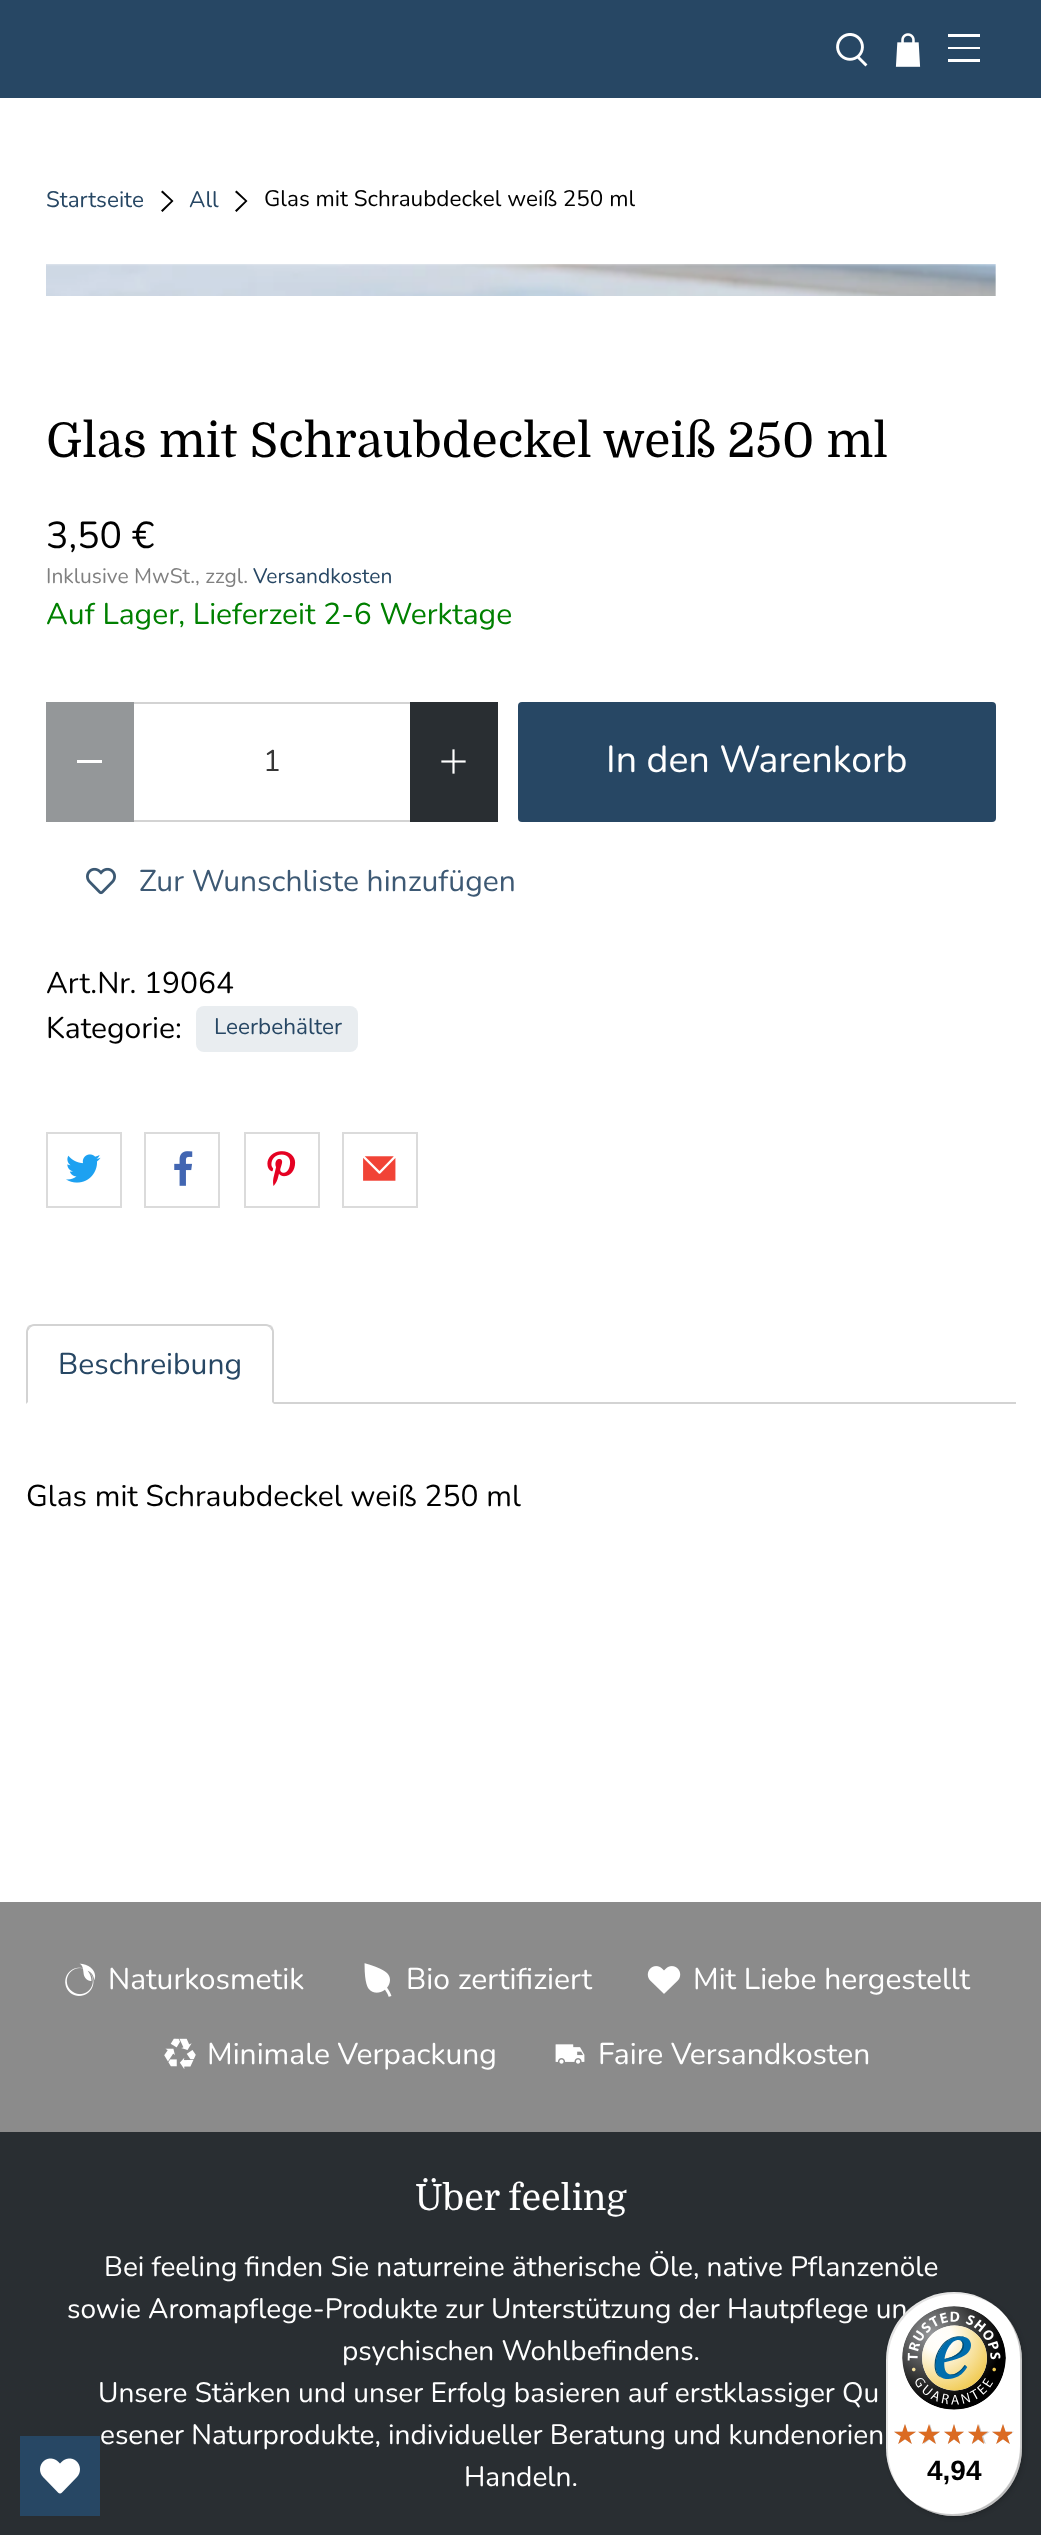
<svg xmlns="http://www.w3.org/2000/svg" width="1041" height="2535">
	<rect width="100%" height="100%" fill="#FFFFFF" />
	<rect x="0" y="0" width="1041" height="98" fill="#274764" />
	<image x="836" y="33" width="32" height="34" href="assets/img1.png" />
	<image x="895" y="33" width="26" height="34" href="assets/img2.png" />
	<rect x="948" y="34" width="32" height="3" fill="#FFFFFF" />
	<rect x="948" y="47" width="32" height="2" fill="#FFFFFF" />
	<rect x="948" y="59" width="32" height="3" fill="#FFFFFF" />
	<text x="46" y="207" font-family="Nunito" font-size="22.5" fill="#274764">Startseite</text>
	<path d="M162.5 212L161 210.5L171 201L161 192L162.5 190.5L173.5 201Z" fill="#000000" />
	<text x="189" y="207" font-family="Nunito" font-size="22.5" fill="#274764">All</text>
	<path d="M236.5 212L235 210.5L245 201L235 192L236.5 190.5L247.5 201Z" fill="#000000" />
	<text x="264" y="206" font-family="Nunito" font-size="22.5" fill="#000000">Glas mit Schraubdeckel weiß 250 ml</text>
	<image x="46" y="264" width="950" height="32" href="assets/img3.png" />
	<text x="46" y="457" font-family="Domine" font-size="48" fill="#000000">Glas mit Schraubdeckel weiß 250 ml</text>
	<text x="46" y="548" font-family="Nunito" font-size="37.5" fill="#000000">3,50 €</text>
	<text x="46" y="583" font-family="Nunito" font-size="21" fill="#808080">Inklusive MwSt., zzgl.</text>
	<text x="253" y="583" font-family="Nunito" font-size="21" fill="#274764">Versandkosten</text>
	<text x="46" y="624" font-family="Nunito" font-size="30" fill="#008000">Auf Lager, Lieferzeit 2-6 Werktage</text>
	<rect x="46" y="702" width="88" height="120" fill="#949799" />
	<rect x="77" y="760" width="25" height="3" fill="#FFFFFF" />
	<rect x="134" y="702" width="276" height="2" fill="#D3D3D3" />
	<rect x="134" y="820" width="276" height="2" fill="#D3D3D3" />
	<text x="263" y="771" font-family="Nunito" font-size="30" fill="#363636">1</text>
	<rect x="410" y="702" width="88" height="120" fill="#292E32" />
	<image x="441" y="749" width="25" height="25" href="assets/img4.png" />
	<rect x="518" y="702" width="478" height="120" rx="4" fill="#274764" />
	<text x="606" y="772" font-family="Nunito" font-size="37.5" fill="#FFFFFF">In den Warenkorb</text>
	<image x="86" y="867" width="30" height="28" href="assets/img5.png" />
	<text x="139" y="891" font-family="Nunito" font-size="30" fill="#3D5974">Zur Wunschliste hinzufügen</text>
	<g font-family="Nunito" font-size="30" fill="#000000">
		<text x="46" y="993">Art.Nr. 19064</text>
		<text x="46" y="1038">Kategorie:</text>
	</g>
	<rect x="196" y="1006" width="162" height="46" rx="8" fill="#E9EDF0" />
	<text x="214" y="1034" font-family="Nunito" font-size="22.5" fill="#274764">Leerbehälter</text>
	<rect x="47" y="1133" width="74" height="74" fill="none" stroke="#DBDBDB" stroke-width="2" />
	<image x="66" y="1154" width="35" height="29" href="assets/img6.png" />
	<rect x="145" y="1133" width="74" height="74" fill="none" stroke="#DBDBDB" stroke-width="2" />
	<image x="174" y="1151" width="19" height="35" href="assets/img7.png" />
	<rect x="245" y="1133" width="74" height="74" fill="none" stroke="#DBDBDB" stroke-width="2" />
	<image x="267" y="1151" width="29" height="35" href="assets/img8.png" />
	<rect x="343" y="1133" width="74" height="74" fill="none" stroke="#DBDBDB" stroke-width="2" />
	<image x="363" y="1156" width="33" height="25" href="assets/img9.png" />
	<rect x="274" y="1402" width="742" height="2" fill="#D3D3D3" />
	<path d="M34 1324C32 1324 30 1325 28 1326L30 1328C31 1327 32 1326 34 1326H266C268 1326 269 1327 270 1328L272 1326C270 1325 268 1324 266 1324Z" fill="#D3D3D3" />
	<path d="M274 1404V1332C274 1330 273 1328 272 1326L270 1328L272 1331V1402Z" fill="#D3D3D3" />
	<path d="M26 1404L28 1402V1331L30 1328L28 1326C27 1328 26 1330 26 1332Z" fill="#D3D3D3" />
	<text x="58" y="1374" font-family="Nunito" font-size="30" fill="#274764">Beschreibung</text>
	<text x="26" y="1506" font-family="Nunito" font-size="30" fill="#000000">Glas mit Schraubdeckel weiß 250 ml</text>
	<rect x="0" y="1902" width="1041" height="230" fill="#8B8B8B" />
	<image x="65" y="1963" width="31" height="33" href="assets/img10.png" />
	<text x="108" y="1989" font-family="Nunito" font-size="30" fill="#FFFFFF">Naturkosmetik</text>
	<image x="364" y="1963" width="28" height="34" href="assets/img11.png" />
	<text x="406" y="1989" font-family="Nunito" font-size="30" fill="#FFFFFF">Bio zertifiziert</text>
	<image x="647" y="1966" width="34" height="28" href="assets/img12.png" />
	<text x="693" y="1989" font-family="Nunito" font-size="30" fill="#FFFFFF">Mit Liebe hergestellt</text>
	<image x="164" y="2038" width="32" height="31" href="assets/img13.png" />
	<text x="207" y="2064" font-family="Nunito" font-size="30" fill="#FFFFFF">Minimale Verpackung</text>
	<image x="555" y="2044" width="30" height="20" href="assets/img14.png" />
	<text x="598" y="2064" font-family="Nunito" font-size="30" fill="#FFFFFF">Faire Versandkosten</text>
	<rect x="0" y="2132" width="1041" height="403" fill="#292E32" />
	<text x="415" y="2210" font-family="Domine" font-size="36" fill="#FFFFFF">Über feeling</text>
	<g font-family="Nunito" font-size="28" fill="#FFFFFF">
		<text x="104" y="2276">Bei feeling finden Sie naturreine ätherische Öle, native Pflanzenöle</text>
		<text x="67" y="2318">sowie Aromapflege-Produkte zur Unterstützung der Hautpflege un</text>
		<text x="342" y="2360">psychischen Wohlbefindens.</text>
		<text x="98" y="2402">Unsere Stärken und unser Erfolg basieren auf erstklassiger Qu</text>
		<text x="100" y="2444">esener Naturprodukte, individueller Beratung und kundenorien</text>
		<text x="464" y="2486">Handeln.</text>
	</g>
	<rect x="20" y="2436" width="80" height="80" fill="#274764" />
	<image x="40" y="2458" width="40" height="36" href="assets/img15.png" />
	<rect x="888" y="2294" width="136" height="224" rx="68" fill="#000000" fill-opacity="0.15" filter="blur(2px)" />
	<rect x="886" y="2292" width="136" height="224" rx="68" fill="#FFFFFF" />
	<path d="M956 2294C972 2294 987 2300 999 2309C987 2298 971 2292 954 2292C916 2292 886 2322 886 2360V2448C886 2465 892 2481 903 2493C894 2481 888 2466 888 2450V2362C888 2324 918 2294 956 2294Z" fill="#000000" fill-opacity="0.1" />
	<path d="M909 2499C921 2510 937 2516 954 2516C992 2516 1022 2486 1022 2448V2360C1022 2343 1016 2327 1005 2315C1014 2327 1020 2342 1020 2358V2446C1020 2484 990 2514 952 2514C936 2514 921 2508 909 2499Z" fill="#000000" fill-opacity="0.2" />
	<path d="M904 2495C917 2508 934 2516 954 2516C992 2516 1022 2486 1022 2448V2360C1022 2340 1014 2323 1001 2310C1013 2323 1021 2340 1021 2359V2447C1021 2484 990 2515 953 2515C934 2515 917 2507 904 2495Z" fill="#323232" fill-opacity="0.2" />
	<path d="M913 2502C925 2511 939 2516 954 2516C992 2516 1022 2486 1022 2448V2360C1022 2345 1017 2331 1008 2319C1016 2330 1021 2344 1021 2359V2447C1021 2485 991 2515 953 2515C938 2515 924 2510 913 2502Z" fill="#FFFFFF" fill-opacity="0.3" />
	<image x="902" y="2306" width="104" height="104" href="assets/img16.png" />
	<image x="894" y="2424" width="22" height="20" href="assets/img17.png" />
	<image x="920" y="2424" width="20" height="20" href="assets/img18.png" />
	<image x="944" y="2424" width="20" height="20" href="assets/img19.png" />
	<image x="968" y="2424" width="22" height="20" href="assets/img20.png" />
	<image x="992" y="2424" width="22" height="20" href="assets/img20.png" />
	<image x="894" y="2424" width="22" height="20" href="assets/img21.png" />
	<image x="918" y="2424" width="22" height="20" href="assets/img22.png" />
	<image x="944" y="2424" width="20" height="20" href="assets/img23.png" />
	<image x="968" y="2424" width="20" height="20" href="assets/img24.png" />
	<image x="992" y="2424" width="20" height="20" href="assets/img25.png" />
	<text x="927" y="2480" font-family="Liberation Sans" font-size="28" font-weight="700" fill="#000000">4,94</text>
</svg>
